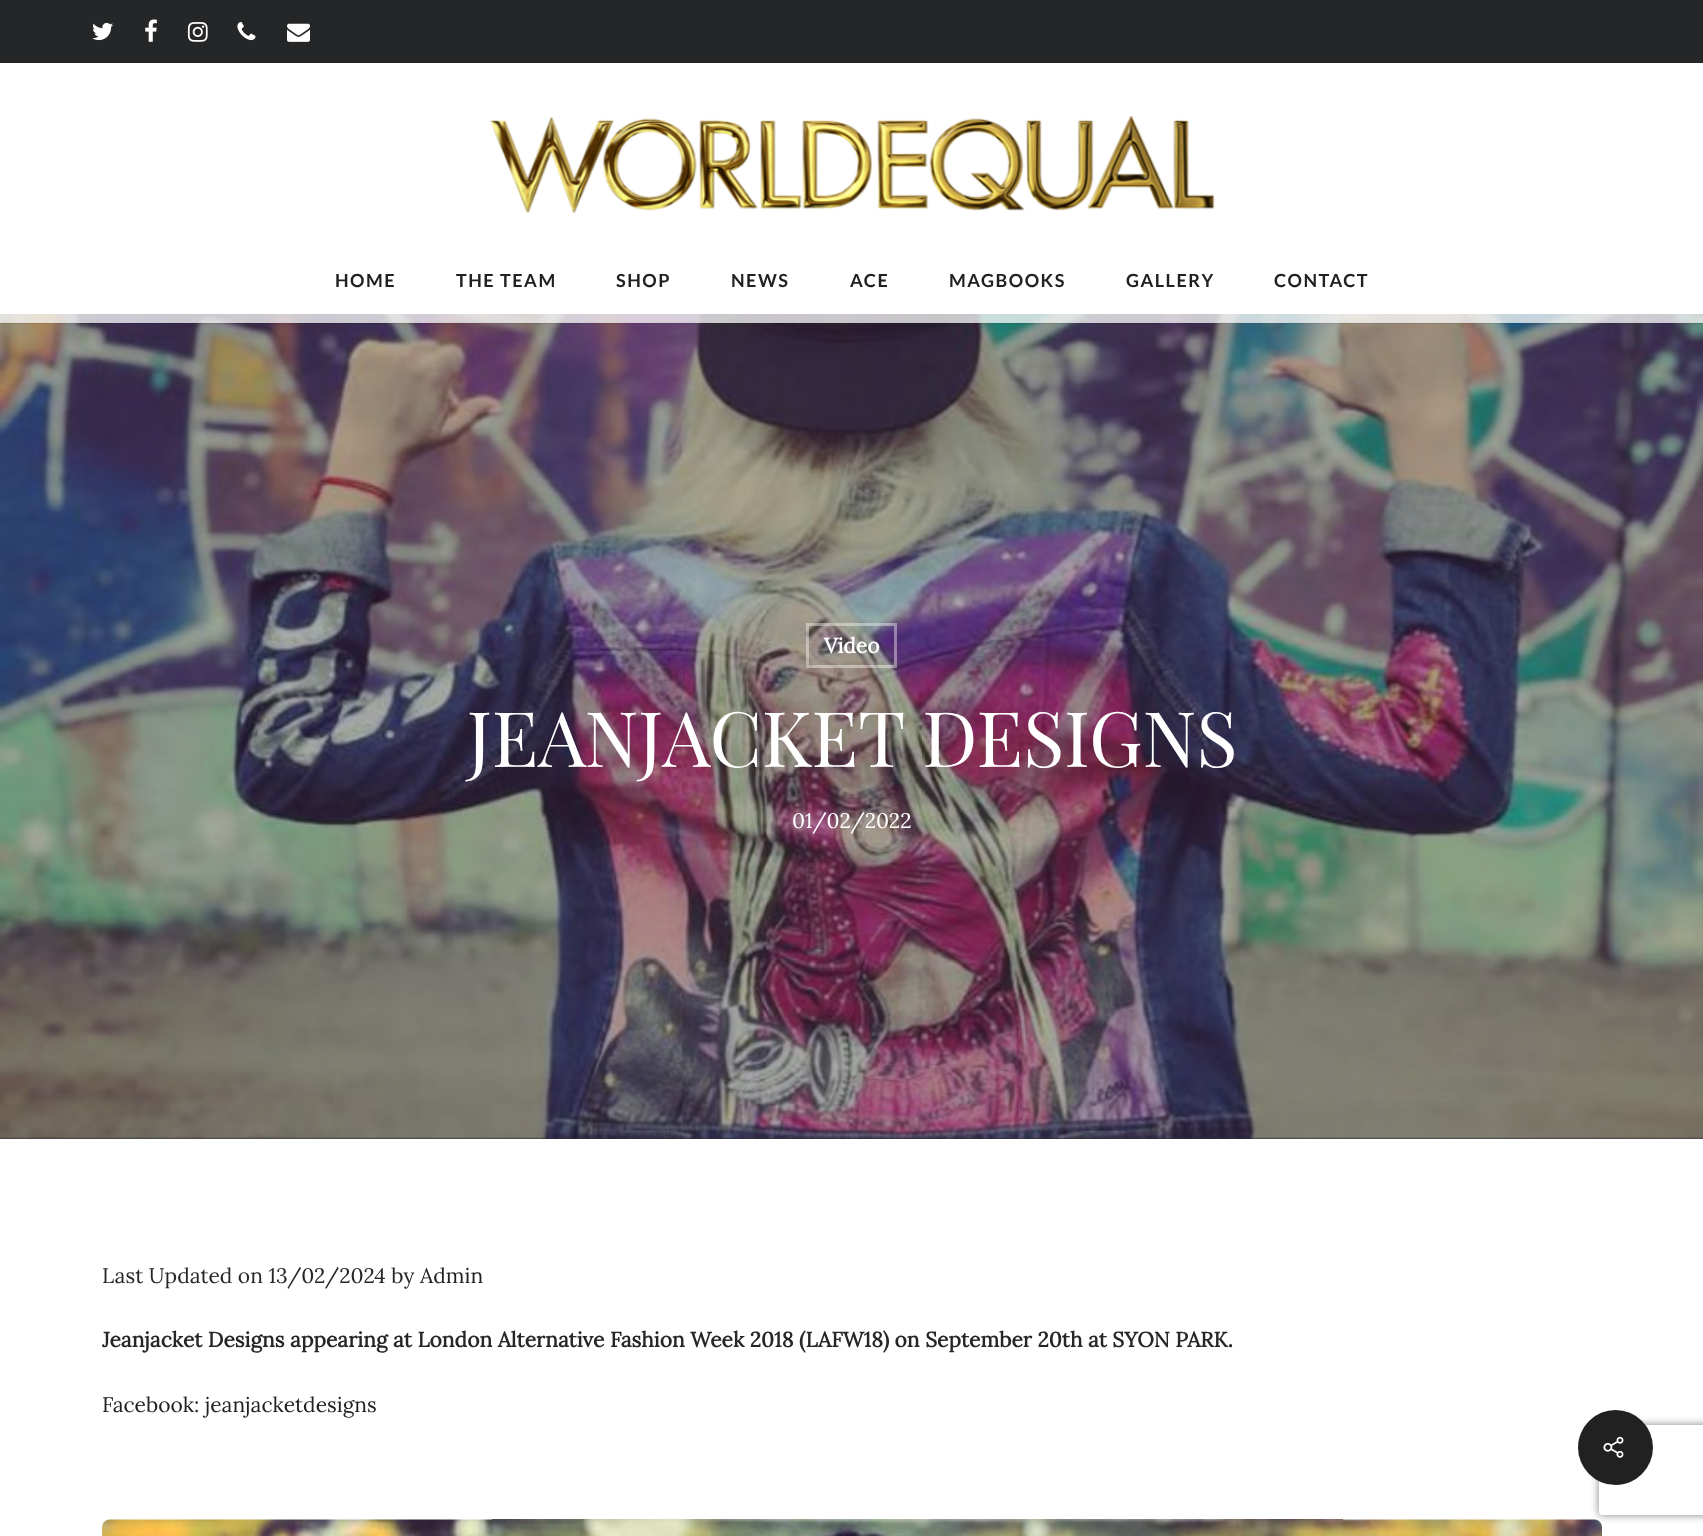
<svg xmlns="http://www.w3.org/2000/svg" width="1703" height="1536">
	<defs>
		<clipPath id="clip1"><path d="M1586 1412H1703V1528H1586ZM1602 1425H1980C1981.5 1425 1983 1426.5 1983 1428V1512C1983 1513.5 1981.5 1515 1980 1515H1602C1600.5 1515 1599 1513.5 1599 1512V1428C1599 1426.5 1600.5 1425 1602 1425Z" clip-rule="evenodd" /></clipPath>
	</defs>
	<rect width="100%" height="100%" fill="#FFFFFF" />
	<rect x="0" y="314" width="1703" height="825" fill="#2D2D2D" />
	<image x="0" y="314" width="1703" height="825" href="assets/img7.png" />
	<rect x="0" y="322" width="1703" height="2" fill="#000000" fill-opacity="0.08" />
	<rect x="0" y="314" width="1703" height="9" fill="#FFFFFF" fill-opacity="0.75" />
	<rect x="0" y="0" width="1703" height="63" fill="#252627" />
	<image x="92" y="22" width="21" height="19" href="assets/img1.png" />
	<image x="145" y="19" width="12" height="23" href="assets/img2.png" />
	<image x="187" y="22" width="21" height="20" href="assets/img3.png" />
	<image x="237" y="22" width="19" height="19" href="assets/img4.png" />
	<image x="287" y="23" width="23" height="19" href="assets/img5.png" />
	<image x="490" y="116" width="725" height="97" href="assets/img6.png" />
	<g font-family="Lato" font-size="18" font-weight="700" letter-spacing="1.5" fill="#212121">
		<text x="335" y="287">HOME</text>
		<text x="456" y="287">THE TEAM</text>
		<text x="616" y="287">SHOP</text>
		<text x="731" y="287">NEWS</text>
		<text x="850" y="287">ACE</text>
		<text x="949" y="287">MAGBOOKS</text>
		<text x="1126" y="287">GALLERY</text>
		<text x="1274" y="287">CONTACT</text>
	</g>
	<rect x="807.5" y="624.5" width="88" height="42" fill="none" stroke="#FFFFFF" stroke-opacity="0.4" stroke-width="3" />
	<text x="824" y="653" font-family="Lora" font-size="21" font-weight="700" fill="#FFFFFF">Video</text>
	<text x="467" y="767" font-family="Playfair Display" font-size="76.5" letter-spacing="-0.25" fill="#FFFFFF">JEANJACKET DESIGNS</text>
	<text x="792" y="828" font-family="Lora" font-size="21" fill="#FFFFFF">01/02/2022</text>
	<text x="102" y="1283" font-family="Lora" font-size="21" fill="#252627">Last Updated on 13/02/2024 by</text>
	<text x="420" y="1283" font-family="Lora" font-size="21" fill="#212121">Admin</text>
	<text x="102" y="1347" font-family="Lora" font-size="21" font-weight="700" fill="#252627">Jeanjacket Designs appearing at London Alternative Fashion Week 2018 (LAFW18) on September 20th at SYON PARK.</text>
	<text x="102" y="1412" font-family="Lora" font-size="21" fill="#212121">Facebook: jeanjacketdesigns</text>
	<image x="102" y="1519" width="1500" height="17" href="assets/img8.png" />
	<g clip-path="url(#clip1)">
		<rect x="1599" y="1425" width="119" height="90" rx="3" fill="#808080" filter="blur(4px)" />
	</g>
	<circle cx="1615.5" cy="1447.5" r="37.5" fill="#212121" />
	<image x="1603" y="1436" width="21" height="22" href="assets/img9.png" />
</svg>
